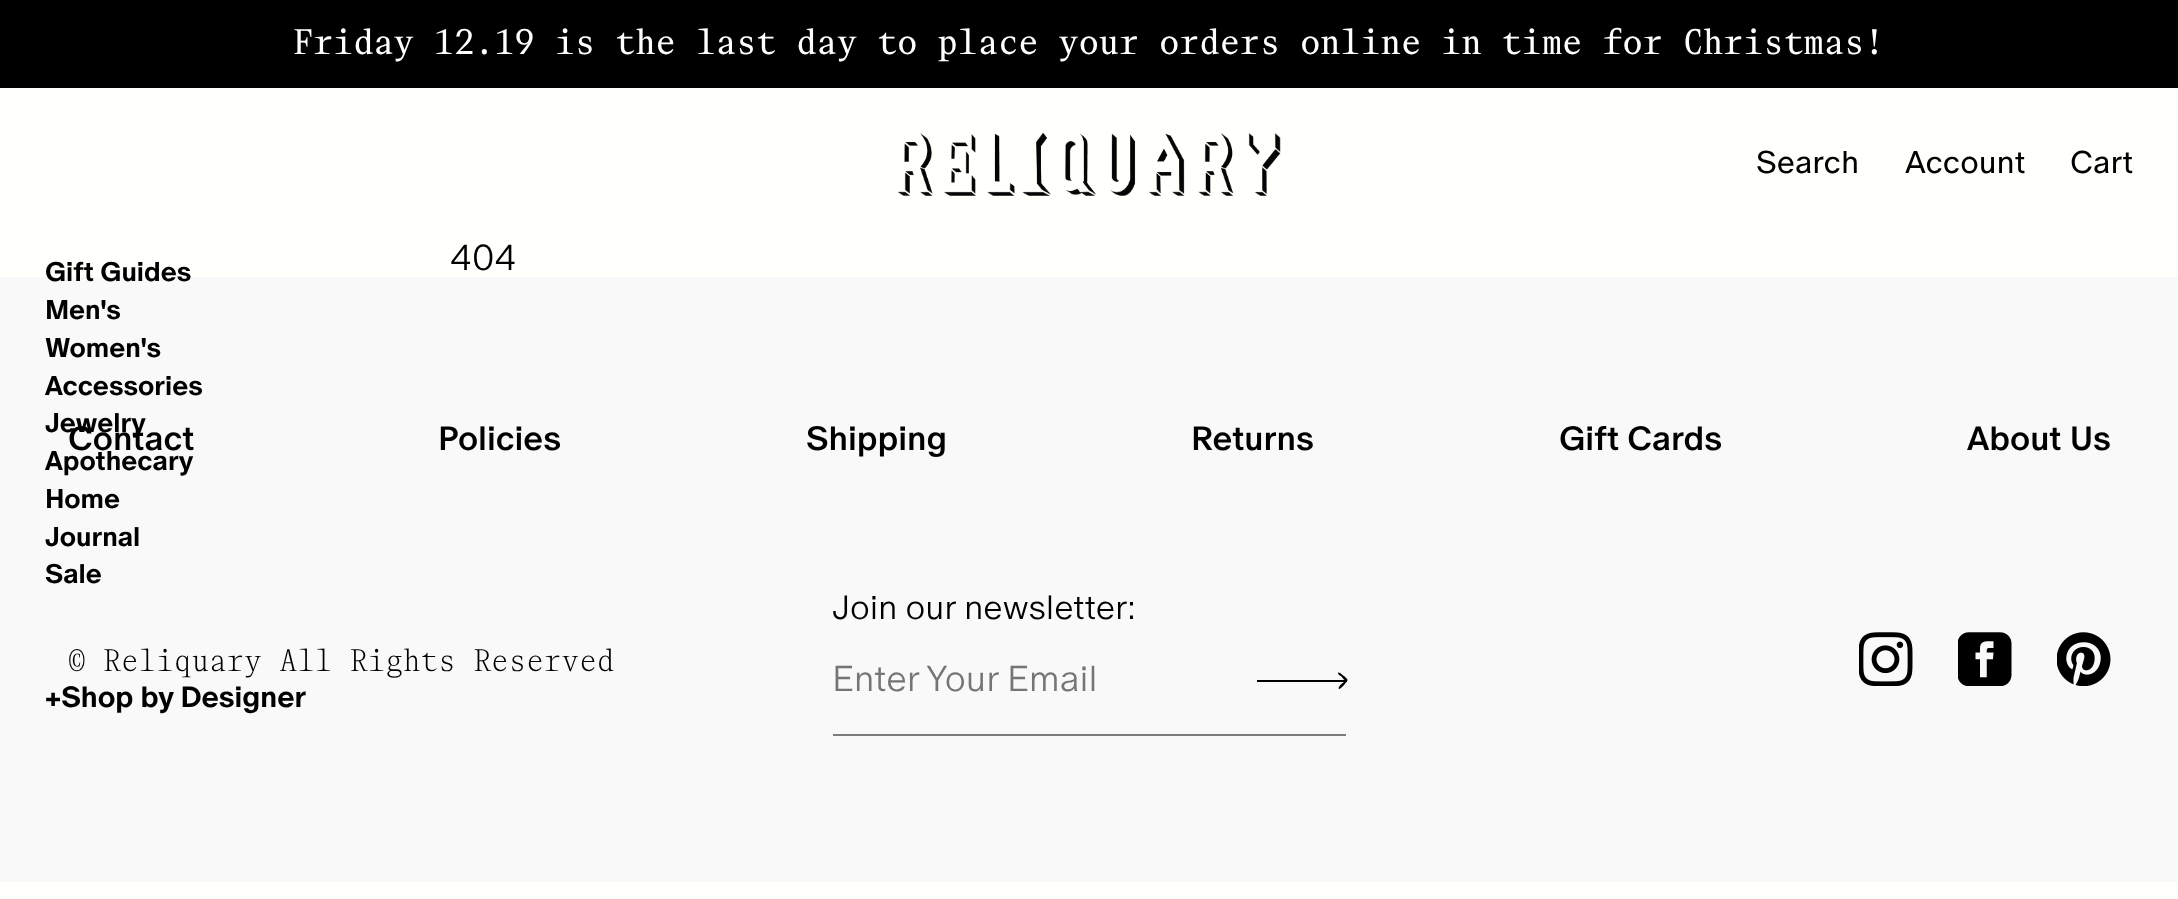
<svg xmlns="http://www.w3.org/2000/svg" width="2178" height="899">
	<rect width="100%" height="100%" fill="#FFFFFC" />
	<rect x="0" y="0" width="2178" height="88" fill="#000000" />
	<text x="293" y="54" font-family="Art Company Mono" font-size="36" fill="#FFFFFF">Friday 12.19 is the last day to place your orders online in time for Christmas!</text>
	<image x="897" y="132" width="384" height="64" href="assets/img1.png" />
	<g font-family="'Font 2'" font-size="31.5" font-weight="300" fill="#000000">
		<text x="1756" y="173">Search</text>
		<text x="1905" y="173">Account</text>
		<text x="2070" y="173">Cart</text>
	</g>
	<rect x="0" y="277" width="2178" height="605" fill="#F8F9F8" />
	<g font-family="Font" font-size="27" font-weight="700" fill="#000000">
		<text x="45" y="281">Gift Guides</text>
		<text x="45" y="319">Men's</text>
		<text x="45" y="357">Women's</text>
		<text x="45" y="395">Accessories</text>
	</g>
	<text x="68" y="450" font-family="Font" font-size="33.75" font-weight="500" fill="#000000">Contact</text>
	<g font-family="Font" font-size="27" font-weight="700" fill="#000000">
		<text x="45" y="432">Jewelry</text>
		<text x="45" y="470">Apothecary</text>
		<text x="45" y="508">Home</text>
		<text x="45" y="546">Journal</text>
		<text x="45" y="583">Sale</text>
	</g>
	<text x="45" y="707" font-family="Font" font-size="29.25" font-weight="700" fill="#000000">+Shop by Designer</text>
	<text x="450" y="270" font-family="Font" font-size="36" font-weight="300" fill="#000000">404</text>
	<g font-family="Font" font-size="33.75" font-weight="500" fill="#000000">
		<text x="438" y="450">Policies</text>
		<text x="806" y="450">Shipping</text>
		<text x="1191" y="450">Returns</text>
		<text x="1559" y="450">Gift Cards</text>
		<text x="1967" y="450">About Us</text>
	</g>
	<text x="68" y="671" font-family="Art Company Mono" font-size="31.5" font-weight="300" fill="#000000">© Reliquary All Rights Reserved</text>
	<text x="832" y="619" font-family="Font" font-size="33.75" font-weight="300" fill="#000000">Join our newsletter:</text>
	<rect x="833" y="734" width="513" height="2" fill="#7C7D7C" />
	<text x="832" y="691" font-family="Font" font-size="36" font-weight="300" fill="#757575">Enter Your Email</text>
	<path d="M1347 681C1349 680 1345 677 1344 676C1343 676 1339 671 1338 673C1338 674 1340 676 1341 676L1345 681C1344 682 1337 687 1339 689C1340 690 1346 683 1347 681ZM1257 682H1347V680H1257Z" fill="#000000" />
	<image x="1859" y="632" width="54" height="54" href="assets/img2.png" />
	<image x="1958" y="632" width="54" height="54" href="assets/img3.png" />
	<image x="2057" y="632" width="54" height="54" href="assets/img4.png" />
</svg>
